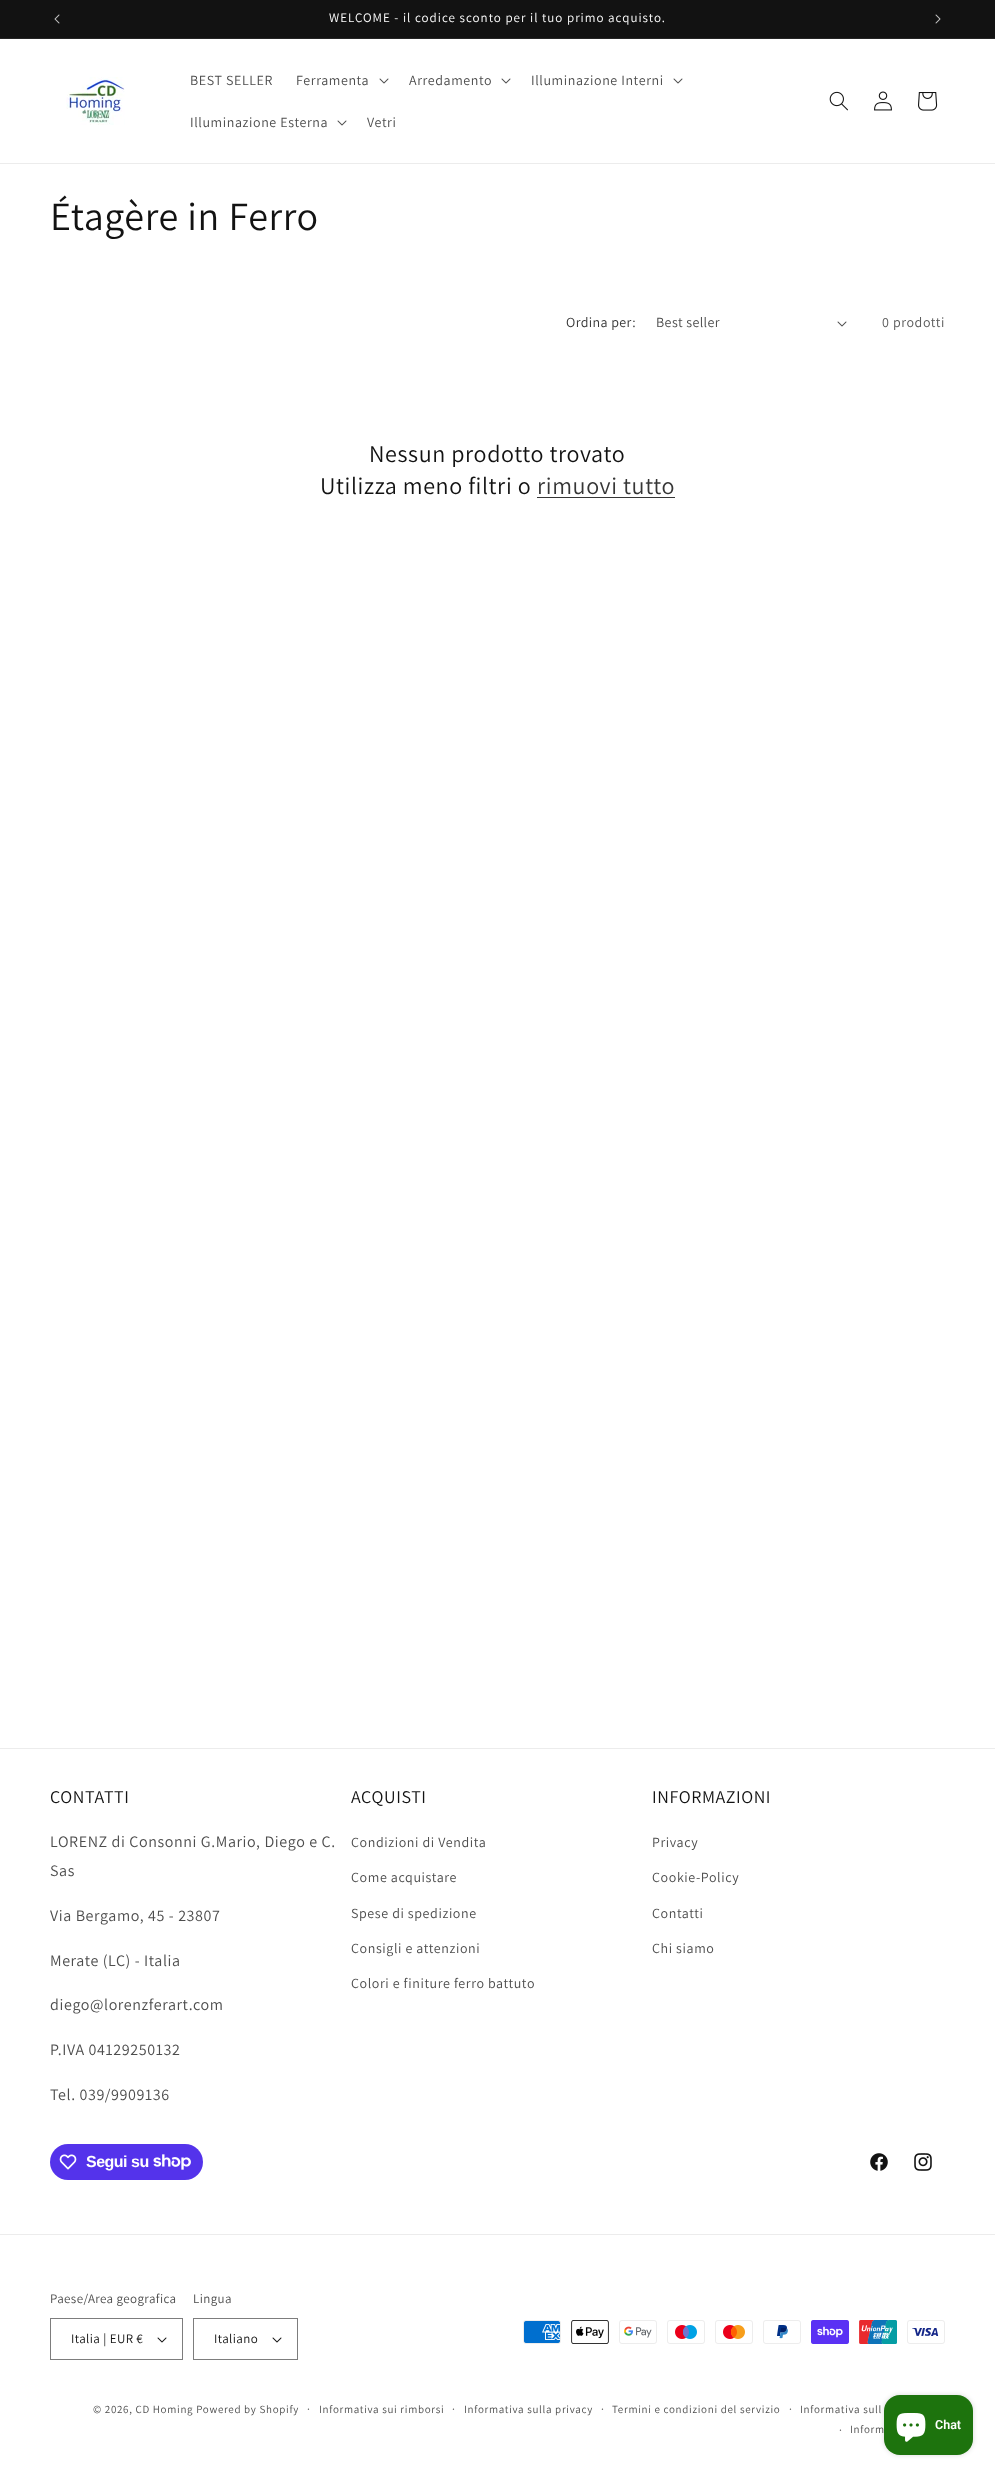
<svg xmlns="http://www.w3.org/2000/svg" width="995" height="2476">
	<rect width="100%" height="100%" fill="#FFFFFF" />
	<rect x="0" y="0" width="995" height="38" fill="#121212" />
	<rect x="0" y="38" width="995" height="1" fill="#252525" />
	<image x="54" y="14" width="6" height="10" href="assets/img1.png" />
	<text x="329" y="22" font-family="Assistant" font-size="13" letter-spacing="1" fill="#FFFFFF">WELCOME - il codice sconto per il tuo primo acquisto.</text>
	<image x="935" y="14" width="6" height="10" href="assets/img2.png" />
	<rect x="0" y="163" width="995" height="1" fill="#ECECEC" />
	<image x="66" y="77" width="59" height="48" href="assets/img3.png" />
	<g font-family="Assistant" font-size="14" letter-spacing="0.6" fill="#4D4D4D">
		<text x="190" y="85">BEST SELLER</text>
		<text x="296" y="85">Ferramenta</text>
	</g>
	<image x="379" y="78" width="10" height="6" href="assets/img4.png" />
	<text x="409" y="85" font-family="Assistant" font-size="14" letter-spacing="0.6" fill="#4D4D4D">Arredamento</text>
	<image x="501" y="78" width="10" height="6" href="assets/img4.png" />
	<text x="531" y="85" font-family="Assistant" font-size="14" letter-spacing="0.6" fill="#4D4D4D">Illuminazione Interni</text>
	<image x="673" y="78" width="10" height="6" href="assets/img4.png" />
	<text x="190" y="127" font-family="Assistant" font-size="14" letter-spacing="0.6" fill="#4D4D4D">Illuminazione Esterna</text>
	<image x="337" y="120" width="10" height="6" href="assets/img4.png" />
	<text x="367" y="127" font-family="Assistant" font-size="14" letter-spacing="0.6" fill="#4D4D4D">Vetri</text>
	<image x="829" y="91" width="19" height="20" href="assets/img5.png" />
	<image x="874" y="91" width="18" height="20" href="assets/img6.png" />
	<image x="918" y="92" width="20" height="19" href="assets/img7.png" />
	<text x="50" y="230" font-family="Assistant" font-size="40" letter-spacing="0.6" fill="#121212">Étagère in Ferro</text>
	<text x="566" y="327" font-family="Assistant" font-size="14" letter-spacing="0.4" fill="#363636">Ordina per:</text>
	<text x="656" y="327" font-family="Assistant" font-size="14" letter-spacing="0.4" fill="#4D4D4D">Best seller</text>
	<image x="837" y="321" width="10" height="6" href="assets/img4.png" />
	<text x="882" y="327" font-family="Assistant" font-size="14" letter-spacing="0.6" fill="#595959">0 prodotti</text>
	<g font-family="Assistant" font-size="24" letter-spacing="0.6" fill="#121212">
		<text x="369" y="462">Nessun prodotto trovato</text>
		<text x="320" y="494">Utilizza meno filtri o</text>
	</g>
	<text x="537" y="494" font-family="Assistant" font-size="24" letter-spacing="0.6" fill="#363636">rimuovi tutto</text>
	<rect x="537" y="497" width="138" height="1" fill="#363636" />
	<rect x="0" y="1748" width="995" height="1" fill="#ECECEC" />
	<text x="50" y="1803" font-family="Assistant" font-size="18" letter-spacing="0.6" fill="#121212">CONTATTI</text>
	<g font-family="Assistant" font-size="16" letter-spacing="0.6" fill="#4D4D4D">
		<text x="50" y="1847">LORENZ di Consonni G.Mario, Diego e C.</text>
		<text x="50" y="1876">Sas</text>
		<text x="50" y="1921">Via Bergamo, 45 - 23807</text>
		<text x="50" y="1966">Merate (LC) - Italia</text>
		<text x="50" y="2010">diego@lorenzferart.com</text>
		<text x="50" y="2055">P.IVA 04129250132</text>
		<text x="50" y="2100">Tel. 039/9909136</text>
	</g>
	<text x="351" y="1803" font-family="Assistant" font-size="18" letter-spacing="0.6" fill="#121212">ACQUISTI</text>
	<g font-family="Assistant" font-size="14" letter-spacing="0.6" fill="#4D4D4D">
		<text x="351" y="1847">Condizioni di Vendita</text>
		<text x="351" y="1882">Come acquistare</text>
		<text x="351" y="1918">Spese di spedizione</text>
		<text x="351" y="1953">Consigli e attenzioni</text>
		<text x="351" y="1988">Colori e finiture ferro battuto</text>
	</g>
	<text x="652" y="1803" font-family="Assistant" font-size="18" letter-spacing="0.6" fill="#121212">INFORMAZIONI</text>
	<g font-family="Assistant" font-size="14" letter-spacing="0.6" fill="#4D4D4D">
		<text x="652" y="1847">Privacy</text>
		<text x="652" y="1882">Cookie-Policy</text>
		<text x="652" y="1918">Contatti</text>
		<text x="652" y="1953">Chi siamo</text>
	</g>
	<rect x="50" y="2144" width="153" height="36" rx="18" fill="#5433EB" />
	<image x="59" y="2154" width="18" height="16" href="assets/img8.png" />
	<text x="86" y="2167" font-family="Liberation Sans" font-size="16" font-weight="700" letter-spacing="-0.5" fill="#FFFFFF">Segui su</text>
	<image x="153" y="2154" width="38" height="16" href="assets/img9.png" />
	<image x="870" y="2153" width="18" height="18" href="assets/img10.png" />
	<image x="914" y="2153" width="18" height="18" href="assets/img11.png" />
	<rect x="0" y="2234" width="995" height="1" fill="#ECECEC" />
	<text x="50" y="2303" font-family="Assistant" font-size="13" letter-spacing="0.4" fill="#4D4D4D">Paese/Area geografica</text>
	<image x="157" y="2337" width="10" height="6" href="assets/img12.png" />
	<rect x="50.5" y="2318.5" width="132" height="41" fill="none" stroke="#7D7D7D" />
	<text x="71" y="2343" font-family="Assistant" font-size="13" letter-spacing="0.4" fill="#121212">Italia | EUR €</text>
	<text x="193" y="2303" font-family="Assistant" font-size="13" letter-spacing="0.4" fill="#4D4D4D">Lingua</text>
	<image x="272" y="2337" width="10" height="6" href="assets/img12.png" />
	<rect x="193.5" y="2318.5" width="104" height="41" fill="none" stroke="#7D7D7D" />
	<text x="214" y="2343" font-family="Assistant" font-size="13" letter-spacing="0.4" fill="#121212">Italiano</text>
	<image x="523" y="2320" width="38" height="24" href="assets/img13.png" />
	<image x="571" y="2320" width="38" height="24" href="assets/img14.png" />
	<image x="619" y="2320" width="38" height="24" href="assets/img15.png" />
	<image x="667" y="2320" width="38" height="24" href="assets/img16.png" />
	<image x="715" y="2320" width="38" height="24" href="assets/img17.png" />
	<image x="763" y="2320" width="38" height="24" href="assets/img18.png" />
	<image x="811" y="2320" width="38" height="24" href="assets/img19.png" />
	<image x="859" y="2320" width="38" height="24" href="assets/img20.png" />
	<image x="907" y="2320" width="38" height="24" href="assets/img21.png" />
	<text x="93" y="2413" font-family="Assistant" font-size="11" letter-spacing="0.7" fill="#4D4D4D">© 2026, CD Homing Powered by Shopify</text>
	<text x="307" y="2413" font-family="Assistant" font-size="12" letter-spacing="0.7" fill="#4D4D4D">·</text>
	<text x="319" y="2413" font-family="Assistant" font-size="11" letter-spacing="0.7" fill="#4D4D4D">Informativa sui rimborsi</text>
	<text x="452" y="2413" font-family="Assistant" font-size="12" letter-spacing="0.7" fill="#4D4D4D">·</text>
	<text x="464" y="2413" font-family="Assistant" font-size="11" letter-spacing="0.7" fill="#4D4D4D">Informativa sulla privacy</text>
	<text x="601" y="2413" font-family="Assistant" font-size="12" letter-spacing="0.7" fill="#4D4D4D">·</text>
	<text x="612" y="2413" font-family="Assistant" font-size="11" letter-spacing="0.7" fill="#4D4D4D">Termini e condizioni del servizio</text>
	<text x="789" y="2413" font-family="Assistant" font-size="12" letter-spacing="0.7" fill="#4D4D4D">·</text>
	<text x="800" y="2413" font-family="Assistant" font-size="11" letter-spacing="0.7" fill="#4D4D4D">Informativa sull</text>
	<text x="839" y="2434" font-family="Assistant" font-size="12" letter-spacing="0.7" fill="#4D4D4D">·</text>
	<text x="850" y="2433" font-family="Assistant" font-size="11" letter-spacing="0.7" fill="#4D4D4D">Inform</text>
	<rect x="884" y="2395" width="89" height="60" rx="16" fill="#000000" fill-opacity="0.15" filter="blur(2.5px)" />
	<rect x="884" y="2395" width="89" height="60" rx="16" fill="#1D730D" />
	<image x="896" y="2413" width="30" height="29" href="assets/img22.png" />
	<text x="935" y="2429" font-family="Roboto" font-size="12.5" font-weight="600" fill="#FFFFFF">Chat</text>
</svg>
